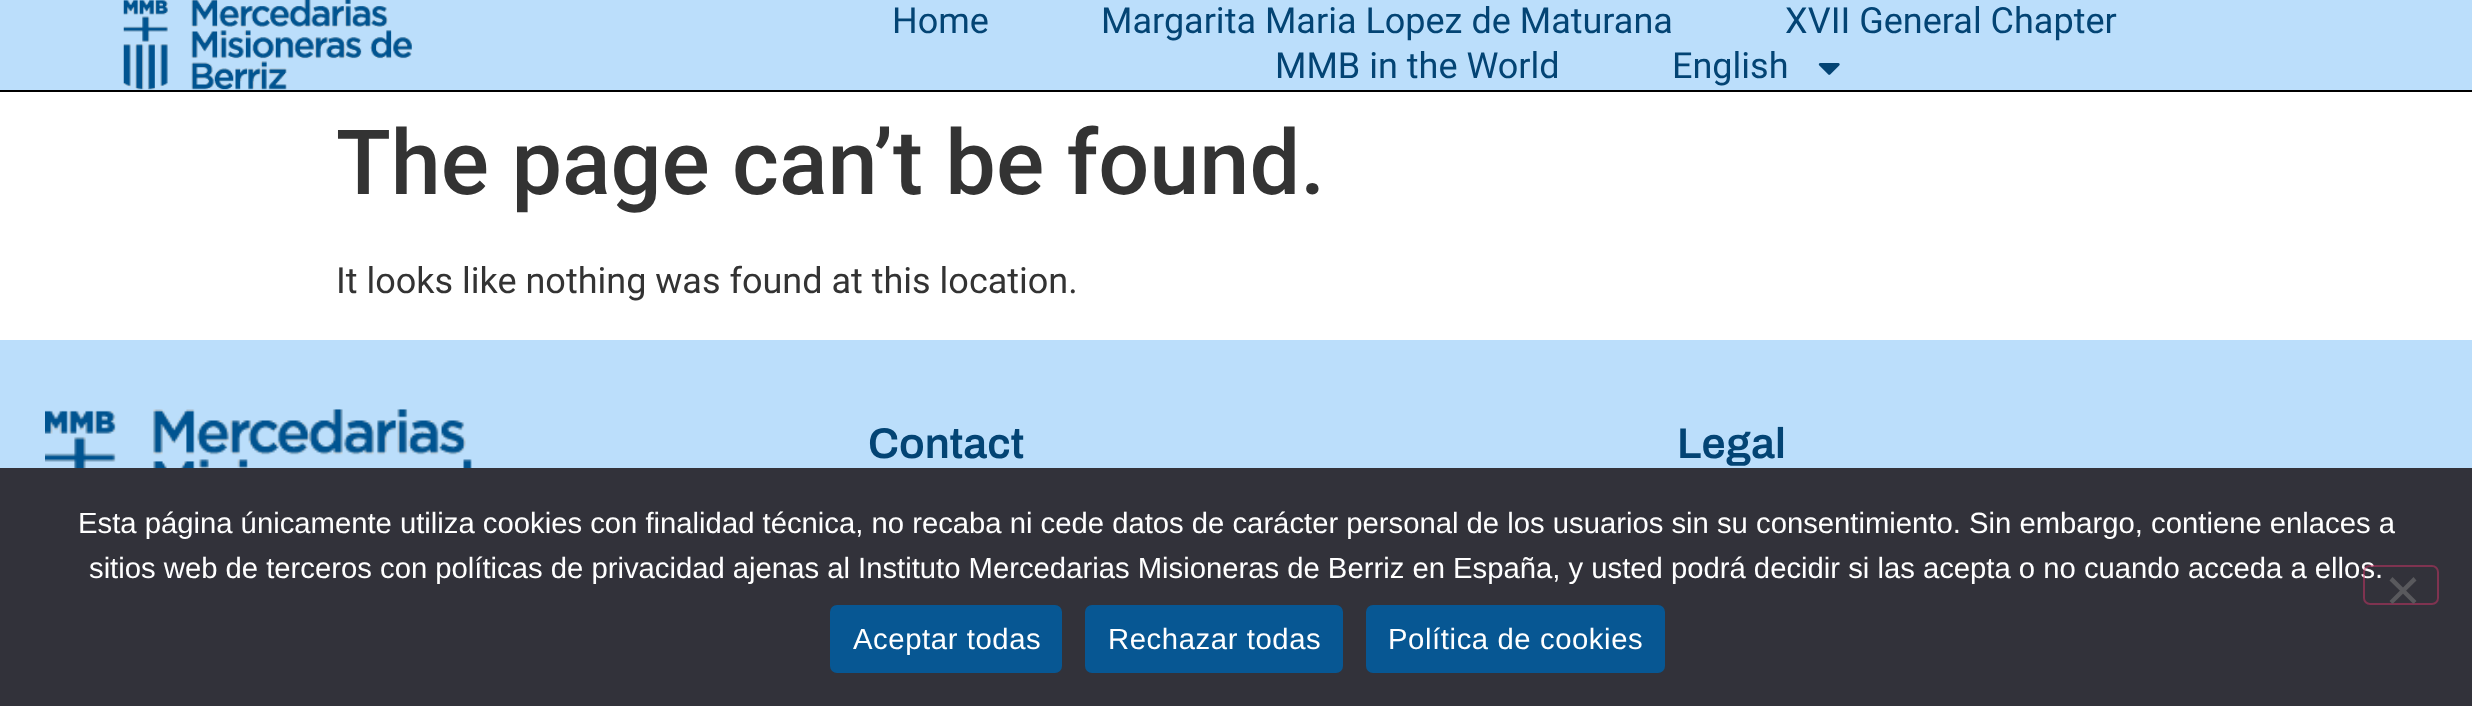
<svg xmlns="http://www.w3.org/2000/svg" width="2472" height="706">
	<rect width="100%" height="100%" fill="#FFFFFF" />
	<rect x="0" y="0" width="2472" height="90" fill="#BBDEFB" />
	<rect x="0" y="90" width="2472" height="2" fill="#000000" />
	<image x="123" y="0" width="289" height="90" href="assets/img1.png" />
	<g font-family="Roboto" font-size="36" fill="#034474">
		<text x="892" y="33">Home</text>
		<text x="1101" y="33">Margarita Maria Lopez de Maturana</text>
		<text x="1785" y="33">XVII General Chapter</text>
		<text x="1275" y="78">MMB in the World</text>
		<text x="1672" y="78">English</text>
	</g>
	<image x="1818" y="63" width="22" height="12" href="assets/img2.png" />
	<text x="336" y="194" font-family="Roboto" font-size="90" font-weight="500" fill="#333333">The page can’t be found.</text>
	<text x="336" y="293" font-family="Roboto" font-size="36" fill="#333333">It looks like nothing was found at this location.</text>
	<rect x="0" y="340" width="2472" height="128" fill="#BBDEFB" />
	<image x="45" y="409" width="427" height="59" href="assets/img3.png" />
	<g font-family="Archivo" font-size="43" font-weight="600" fill="#034474">
		<text x="868" y="458">Contact</text>
		<text x="1677" y="458">Legal</text>
	</g>
	<rect x="0" y="468" width="2472" height="238" fill="#32323A" />
	<g font-family="Liberation Sans" font-size="29.25" fill="#FFFFFF">
		<text x="78" y="533">Esta página únicamente utiliza cookies con finalidad técnica, no recaba ni cede datos de carácter personal de los usuarios sin su consentimiento. Sin embargo, contiene enlaces a</text>
		<text x="89" y="578">sitios web de terceros con políticas de privacidad ajenas al Instituto Mercedarias Misioneras de Berriz en España, y usted podrá decidir si las acepta o no cuando acceda a ellos.</text>
	</g>
	<rect x="2364" y="566" width="74" height="38" rx="6" fill="none" stroke="#CC3366" stroke-opacity="0.5" stroke-width="2" />
	<path d="M2413.5 577L2416.5 580.5L2392.5 604L2389.5 601Z" fill="#59595D" />
	<path d="M2389.5 580.5L2392.5 577L2416.5 601L2413.5 604Z" fill="#59595D" />
	<rect x="830" y="605" width="232" height="68" rx="7" fill="#075793" />
	<text x="853" y="649" font-family="Liberation Sans" font-size="29.25" letter-spacing="0.6" fill="#FFFFFF">Aceptar todas</text>
	<rect x="1085" y="605" width="258" height="68" rx="7" fill="#075793" />
	<text x="1108" y="649" font-family="Liberation Sans" font-size="29.25" letter-spacing="0.6" fill="#FFFFFF">Rechazar todas</text>
	<rect x="1366" y="605" width="299" height="68" rx="7" fill="#075793" />
	<text x="1388" y="649" font-family="Liberation Sans" font-size="29.25" letter-spacing="0.6" fill="#FFFFFF">Política de cookies</text>
</svg>
